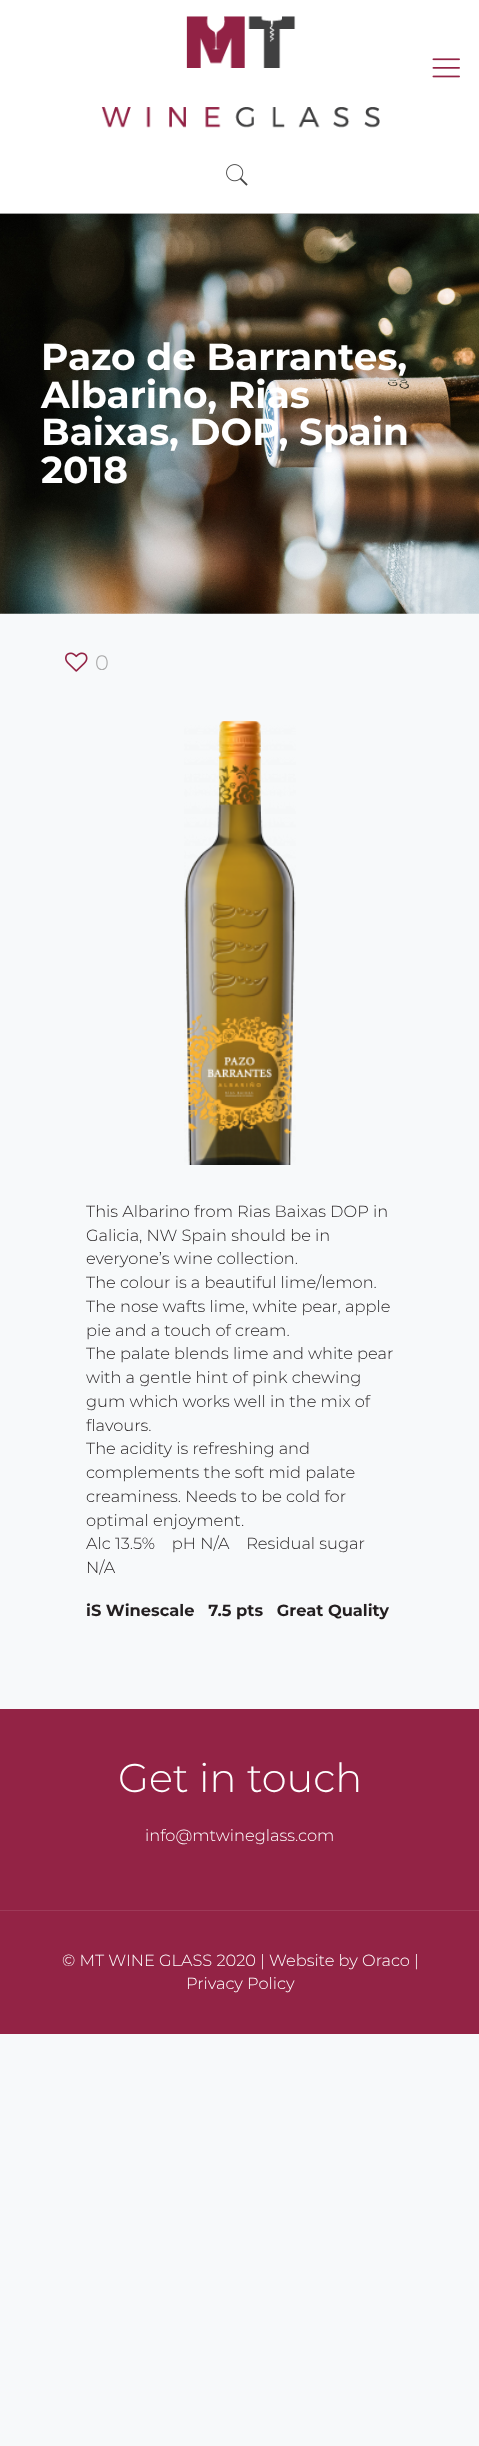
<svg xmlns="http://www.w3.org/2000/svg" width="479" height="2446">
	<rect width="100%" height="100%" fill="#F7F9FA" />
	<rect x="0" y="0" width="479" height="213" fill="#FFFFFF" />
	<rect x="0" y="213" width="479" height="1" fill="#D3D3D3" />
	<image x="101" y="16" width="279" height="112" href="assets/img1.png" />
	<image x="432" y="58" width="28" height="20" href="assets/img2.png" />
	<image x="226" y="164" width="22" height="22" href="assets/img3.png" />
	<image x="0" y="213" width="479" height="401" href="assets/img4.png" />
	<g font-family="Montserrat" font-size="37.5" font-weight="700" fill="#FFFFFF">
		<text x="41" y="370">Pazo de Barrantes,</text>
		<text x="41" y="408">Albarino, Rias</text>
		<text x="41" y="445">Baixas, DOP, Spain</text>
		<text x="41" y="483">2018</text>
	</g>
	<image x="65" y="652" width="23" height="20" href="assets/img5.png" />
	<text x="95" y="670" font-family="Montserrat" font-size="21" font-weight="300" fill="#A8A8A8">0</text>
	<image x="184" y="720" width="112" height="445" href="assets/img6.png" />
	<g font-family="Montserrat" font-size="16.25" font-weight="300" fill="#231F20">
		<text x="86" y="1217">This Albarino from Rias Baixas DOP in</text>
		<text x="86" y="1241">Galicia, NW Spain should be in</text>
		<text x="86" y="1264">everyone’s wine collection.</text>
		<text x="86" y="1288">The colour is a beautiful lime/lemon.</text>
		<text x="86" y="1312">The nose wafts lime, white pear, apple</text>
		<text x="86" y="1336">pie and a touch of cream.</text>
		<text x="86" y="1359">The palate blends lime and white pear</text>
		<text x="86" y="1383">with a gentle hint of pink chewing</text>
		<text x="86" y="1407">gum which works well in the mix of</text>
		<text x="86" y="1431">flavours.</text>
		<text x="86" y="1454">The acidity is refreshing and</text>
		<text x="86" y="1478">complements the soft mid palate</text>
		<text x="86" y="1502">creaminess. Needs to be cold for</text>
		<text x="86" y="1526">optimal enjoyment.</text>
		<text x="86" y="1549" xml:space="preserve">Alc 13.5%    pH N/A    Residual sugar</text>
		<text x="86" y="1573">N/A</text>
	</g>
	<text x="86" y="1616" font-family="Montserrat" font-size="16.25" font-weight="700" fill="#231F20" xml:space="preserve">iS Winescale   7.5 pts   Great Quality</text>
	<rect x="0" y="1709" width="479" height="325" fill="#932345" />
	<text x="118" y="1792" font-family="Montserrat" font-size="40" font-weight="300" fill="#FFFFFF">Get in touch</text>
	<text x="145" y="1841" font-family="Montserrat" font-size="16.25" font-weight="300" fill="#FFFFFF">info@mtwineglass.com</text>
	<rect x="0" y="1910" width="479" height="1" fill="#9E3958" />
	<g font-family="Montserrat" font-size="16.25" font-weight="300" fill="#FFFFFF">
		<text x="62" y="1966">© MT WINE GLASS 2020 | Website by Oraco |</text>
		<text x="186" y="1989">Privacy Policy</text>
	</g>
</svg>
